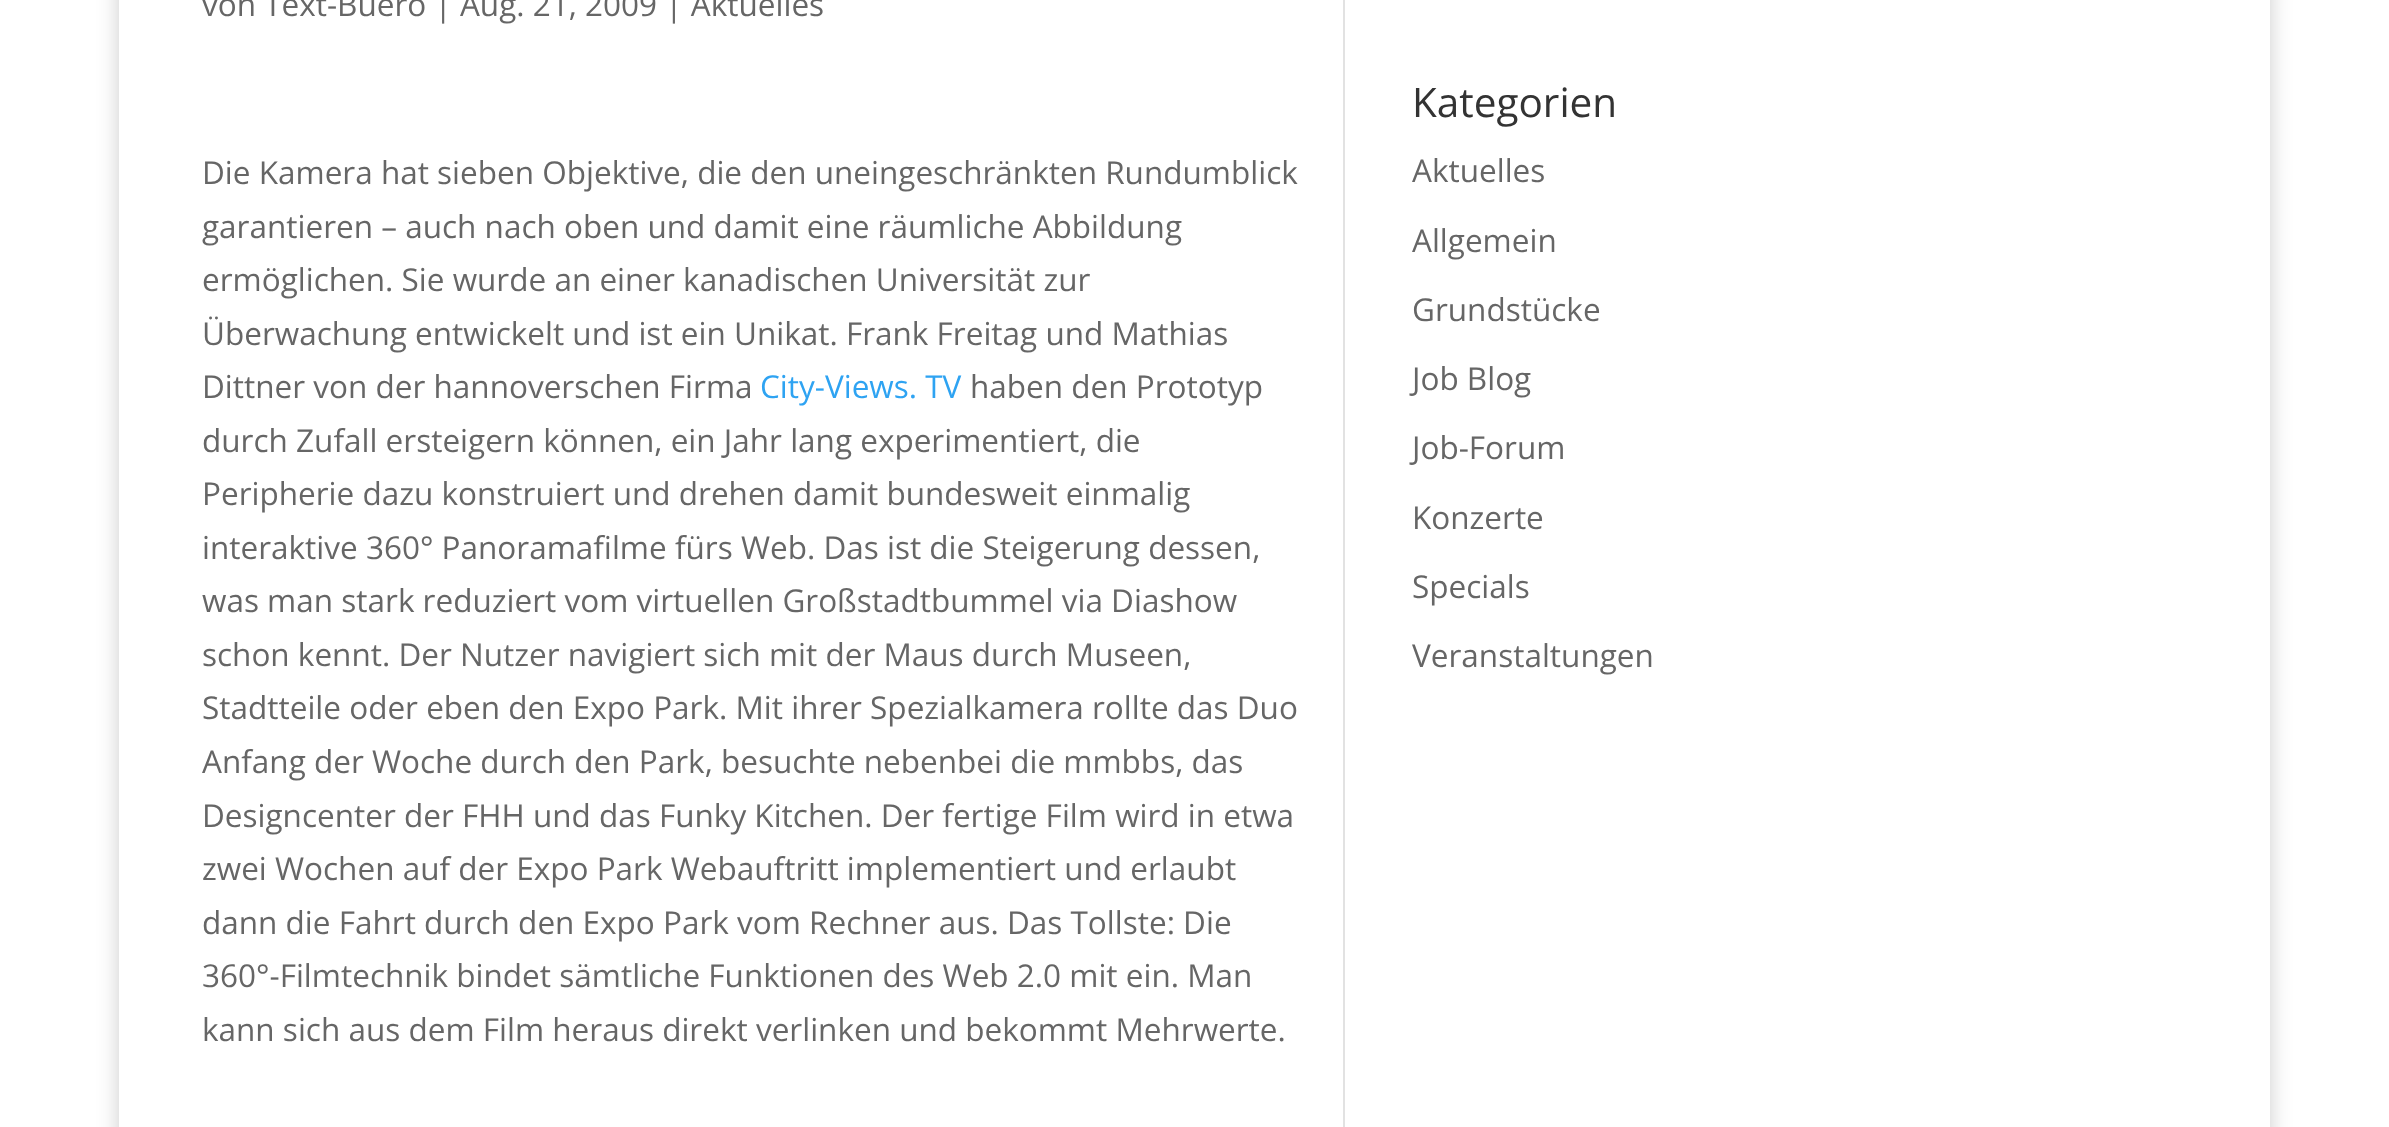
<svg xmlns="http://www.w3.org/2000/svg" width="2389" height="1127">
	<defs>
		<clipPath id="clip1"><path d="M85 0H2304V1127H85ZM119-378H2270V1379H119Z" clip-rule="evenodd" /></clipPath>
	</defs>
	<rect width="100%" height="100%" fill="#FFFFFF" />
	<g clip-path="url(#clip1)">
		<rect x="119" y="-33" width="2151" height="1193" fill="#000000" fill-opacity="0.2" filter="blur(11px)" />
	</g>
	<rect x="119" y="0" width="1" height="1127" fill="#FFFFFF" />
	<g font-family="Open Sans" font-size="31.5" fill="#666666">
		<text x="202" y="16">von Text-Buero | Aug. 21, 2009 | Aktuelles</text>
		<text x="202" y="184">Die Kamera hat sieben Objektive, die den uneingeschränkten Rundumblick</text>
		<text x="202" y="238">garantieren – auch nach oben und damit eine räumliche Abbildung</text>
		<text x="202" y="291">ermöglichen. Sie wurde an einer kanadischen Universität zur</text>
		<text x="202" y="345">Überwachung entwickelt und ist ein Unikat. Frank Freitag und Mathias</text>
		<text x="202" y="398">Dittner von der hannoverschen Firma</text>
	</g>
	<text x="760" y="398" font-family="Open Sans" font-size="31.5" fill="#2EA3F2">City-Views. TV</text>
	<g font-family="Open Sans" font-size="31.5" fill="#666666">
		<text x="970" y="398">haben den Prototyp</text>
		<text x="202" y="452">durch Zufall ersteigern können, ein Jahr lang experimentiert, die</text>
		<text x="202" y="505">Peripherie dazu konstruiert und drehen damit bundesweit einmalig</text>
		<text x="202" y="559">interaktive 360° Panoramafilme fürs Web. Das ist die Steigerung dessen,</text>
		<text x="202" y="612">was man stark reduziert vom virtuellen Großstadtbummel via Diashow</text>
		<text x="202" y="666">schon kennt. Der Nutzer navigiert sich mit der Maus durch Museen,</text>
		<text x="202" y="719">Stadtteile oder eben den Expo Park. Mit ihrer Spezialkamera rollte das Duo</text>
		<text x="202" y="773">Anfang der Woche durch den Park, besuchte nebenbei die mmbbs, das</text>
		<text x="202" y="827">Designcenter der FHH und das Funky Kitchen. Der fertige Film wird in etwa</text>
		<text x="202" y="880">zwei Wochen auf der Expo Park Webauftritt implementiert und erlaubt</text>
		<text x="202" y="934">dann die Fahrt durch den Expo Park vom Rechner aus. Das Tollste: Die</text>
		<text x="202" y="987">360°-Filmtechnik bindet sämtliche Funktionen des Web 2.0 mit ein. Man</text>
		<text x="202" y="1041">kann sich aus dem Film heraus direkt verlinken und bekommt Mehrwerte.</text>
	</g>
	<text x="1412" y="117" font-family="Open Sans" font-size="40.5" fill="#333333">Kategorien</text>
	<g font-family="Open Sans" font-size="31.5" fill="#666666">
		<text x="1412" y="182">Aktuelles</text>
		<text x="1412" y="252">Allgemein</text>
		<text x="1412" y="321">Grundstücke</text>
		<text x="1412" y="390">Job Blog</text>
		<text x="1412" y="459">Job-Forum</text>
		<text x="1412" y="529">Konzerte</text>
		<text x="1412" y="598">Specials</text>
		<text x="1412" y="667">Veranstaltungen</text>
	</g>
	<rect x="1343" y="0" width="2" height="1127" fill="#E2E2E2" />
</svg>
